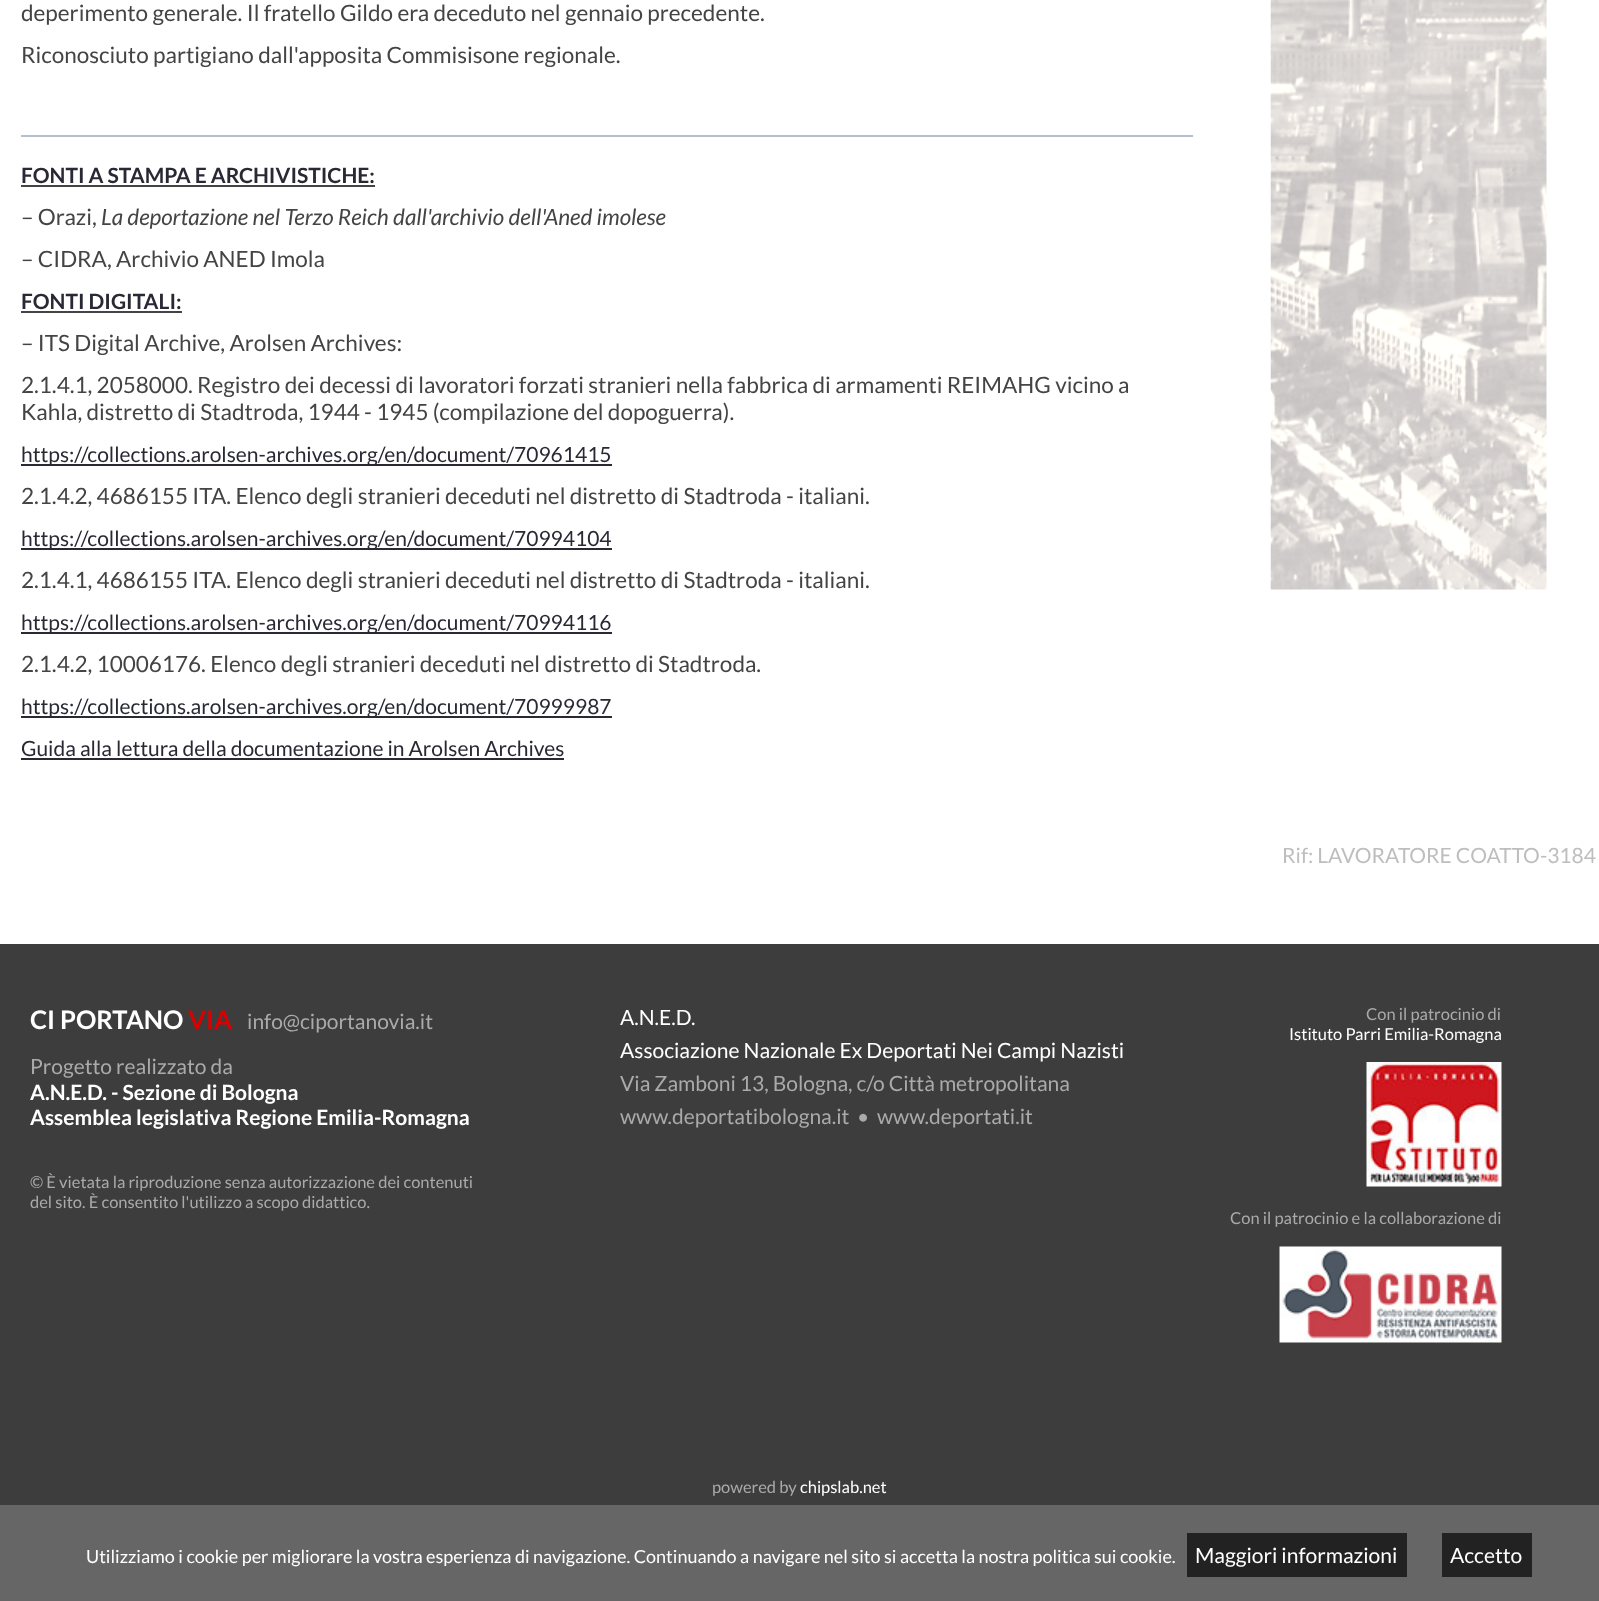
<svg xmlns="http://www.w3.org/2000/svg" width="1599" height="1601">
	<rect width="100%" height="100%" fill="#FFFFFF" />
	<g font-family="Lato" font-size="22.5" fill="#444444">
		<text x="21" y="21">deperimento generale. Il fratello Gildo era deceduto nel gennaio precedente.</text>
		<text x="21" y="63">Riconosciuto partigiano dall'apposita Commisisone regionale.</text>
	</g>
	<rect x="21" y="135" width="1172" height="2" fill="#B4C0CD" />
	<text x="21" y="183" font-family="Lato" font-size="21" font-weight="700" fill="#292935">FONTI A STAMPA E ARCHIVISTICHE:</text>
	<rect x="21" y="185" width="354" height="2" fill="#444444" />
	<text x="21" y="225" font-family="Lato" font-size="22.5" fill="#444444">– Orazi,</text>
	<text x="101" y="225" font-family="Lato" font-size="22.5" font-style="italic" fill="#444444">La deportazione nel Terzo Reich dall'archivio dell'Aned imolese</text>
	<text x="21" y="267" font-family="Lato" font-size="22.5" fill="#444444">– CIDRA, Archivio ANED Imola</text>
	<text x="21" y="309" font-family="Lato" font-size="21" font-weight="700" fill="#292935">FONTI DIGITALI:</text>
	<rect x="21" y="311" width="161" height="2" fill="#444444" />
	<g font-family="Lato" font-size="22.5" fill="#444444">
		<text x="21" y="351">– ITS Digital Archive, Arolsen Archives:</text>
		<text x="21" y="393">2.1.4.1, 2058000. Registro dei decessi di lavoratori forzati stranieri nella fabbrica di armamenti REIMAHG vicino a</text>
		<text x="21" y="420">Kahla, distretto di Stadtroda, 1944 - 1945 (compilazione del dopoguerra).</text>
	</g>
	<rect x="21" y="464" width="591" height="2" fill="#292935" />
	<text x="21" y="462" font-family="Lato" font-size="21" fill="#292935">https://collections.arolsen-archives.org/en/document/70961415</text>
	<text x="21" y="504" font-family="Lato" font-size="22.5" fill="#444444">2.1.4.2, 4686155 ITA. Elenco degli stranieri deceduti nel distretto di Stadtroda - italiani.</text>
	<rect x="21" y="548" width="591" height="2" fill="#292935" />
	<text x="21" y="546" font-family="Lato" font-size="21" fill="#292935">https://collections.arolsen-archives.org/en/document/70994104</text>
	<text x="21" y="588" font-family="Lato" font-size="22.5" fill="#444444">2.1.4.1, 4686155 ITA. Elenco degli stranieri deceduti nel distretto di Stadtroda - italiani.</text>
	<rect x="21" y="632" width="591" height="2" fill="#292935" />
	<text x="21" y="630" font-family="Lato" font-size="21" fill="#292935">https://collections.arolsen-archives.org/en/document/70994116</text>
	<text x="21" y="672" font-family="Lato" font-size="22.5" fill="#444444">2.1.4.2, 10006176. Elenco degli stranieri deceduti nel distretto di Stadtroda.</text>
	<rect x="21" y="716" width="591" height="2" fill="#292935" />
	<g font-family="Lato" font-size="21" fill="#292935">
		<text x="21" y="714">https://collections.arolsen-archives.org/en/document/70999987</text>
		<text x="21" y="756">Guida alla lettura della documentazione in Arolsen Archives</text>
	</g>
	<rect x="21" y="758" width="543" height="2" fill="#292935" />
	<image x="1270" y="0" width="277" height="590" href="assets/img1.png" />
	<text x="1282" y="863" font-family="Lato" font-size="21" fill="#BEBEBE">Rif: LAVORATORE COATTO-3184</text>
	<rect x="0" y="944" width="1599" height="561" fill="#3D3D3D" />
	<text x="30" y="1029" font-family="Lato" font-size="25.5" font-weight="700" fill="#FFFFFF">CI PORTANO</text>
	<text x="188" y="1029" font-family="Lato" font-size="25.5" font-weight="700" fill="#DA0000">VIA</text>
	<g font-family="Lato" font-size="21" fill="#AAAAAA">
		<text x="247" y="1029">info@ciportanovia.it</text>
		<text x="30" y="1074">Progetto realizzato da</text>
	</g>
	<g font-family="Lato" font-size="21" font-weight="700" fill="#FFFFFF">
		<text x="30" y="1100">A.N.E.D. - Sezione di Bologna</text>
		<text x="30" y="1125">Assemblea legislativa Regione Emilia-Romagna</text>
	</g>
	<g font-family="Lato" font-size="21" fill="#FFFFFF">
		<text x="620" y="1025">A.N.E.D.</text>
		<text x="620" y="1058">Associazione Nazionale Ex Deportati Nei Campi Nazisti</text>
	</g>
	<g font-family="Lato" font-size="21" fill="#AAAAAA">
		<text x="620" y="1091">Via Zamboni 13, Bologna, c/o Città metropolitana</text>
		<text x="620" y="1124">www.deportatibologna.it</text>
		<text x="857" y="1124">•</text>
		<text x="877" y="1124">www.deportati.it</text>
	</g>
	<text x="1366" y="1020" font-family="Lato" font-size="16.5" fill="#AAAAAA">Con il patrocinio di</text>
	<text x="1289" y="1040" font-family="Lato" font-size="16.5" fill="#FFFFFF">Istituto Parri Emilia-Romagna</text>
	<image x="1366" y="1062" width="136" height="125" href="assets/img2.png" />
	<text x="1230" y="1224" font-family="Lato" font-size="16.5" fill="#AAAAAA">Con il patrocinio e la collaborazione di</text>
	<image x="1279" y="1246" width="223" height="97" href="assets/img3.png" />
	<g font-family="Lato" font-size="16.5" fill="#AAAAAA">
		<text x="30" y="1188">© È vietata la riproduzione senza autorizzazione dei contenuti</text>
		<text x="30" y="1208">del sito. È consentito l'utilizzo a scopo didattico.</text>
		<text x="712" y="1493">powered by</text>
	</g>
	<text x="800" y="1493" font-family="Lato" font-size="16.5" fill="#FFFFFF">chipslab.net</text>
	<rect x="0" y="1505" width="1599" height="96" fill="#666666" />
	<text x="86" y="1563" font-family="Lato" font-size="18" fill="#FFFFFF">Utilizziamo i cookie per migliorare la vostra esperienza di navigazione. Continuando a navigare nel sito si accetta la nostra politica sui cookie.</text>
	<rect x="1187" y="1533" width="220" height="44" fill="#222222" />
	<text x="1195" y="1563" font-family="Lato" font-size="21" fill="#FFFFFF">Maggiori informazioni</text>
	<rect x="1442" y="1533" width="90" height="44" fill="#222222" />
	<text x="1450" y="1563" font-family="Lato" font-size="21" fill="#FFFFFF">Accetto</text>
</svg>
